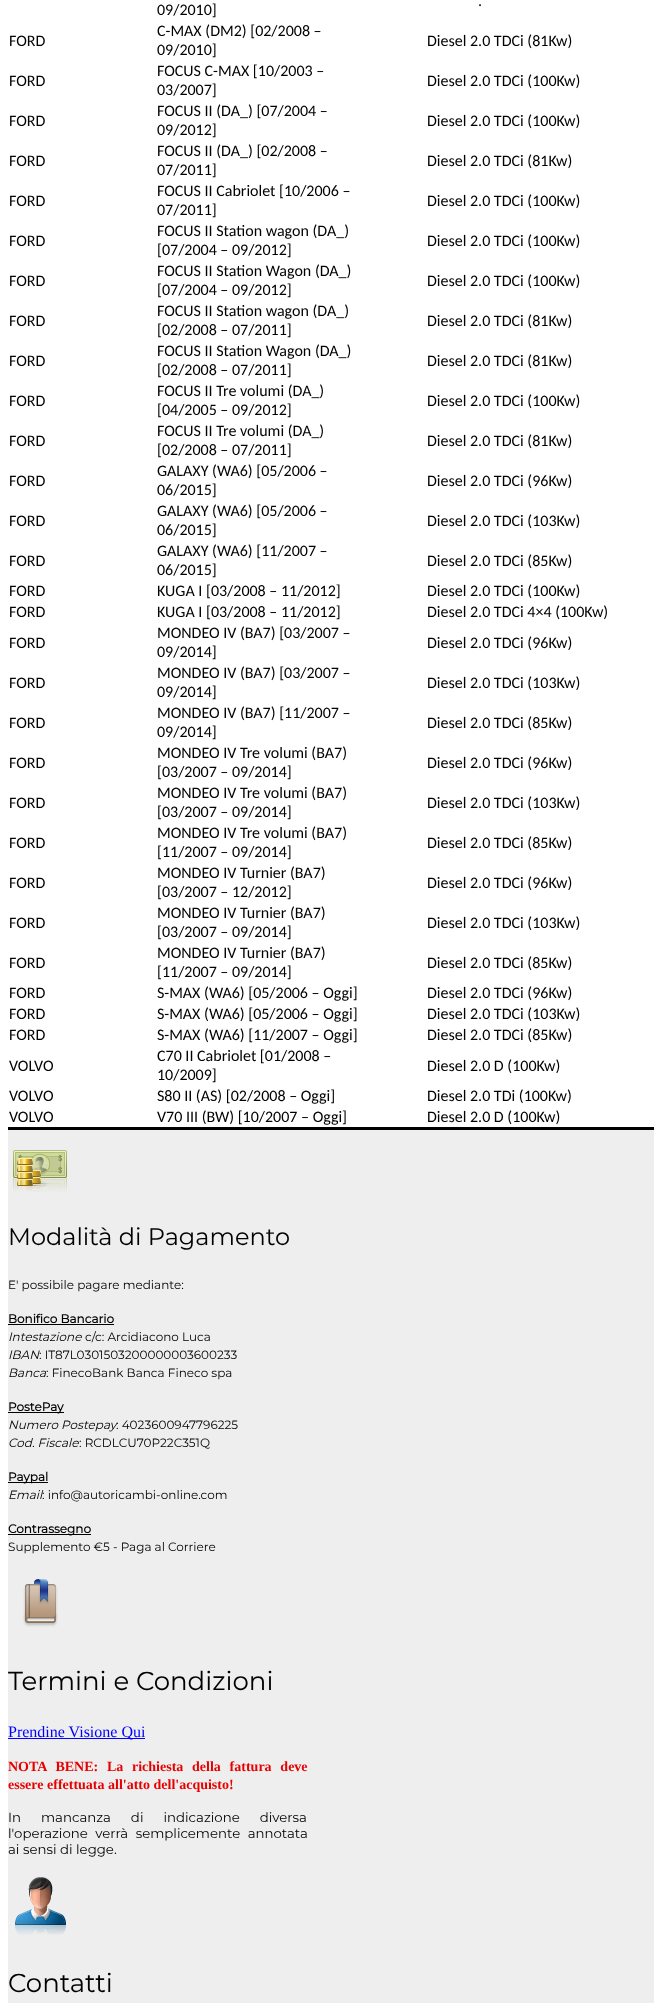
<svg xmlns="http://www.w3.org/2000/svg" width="662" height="2003">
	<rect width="100%" height="100%" fill="#FFFFFF" />
	<g font-family="Carlito" font-size="16" fill="#000000">
		<text x="157" y="15">09/2010]</text>
		<text x="478" y="6">.</text>
		<text x="9" y="46">FORD</text>
		<text x="157" y="36">C-MAX (DM2) [02/2008 –</text>
		<text x="157" y="55">09/2010]</text>
		<text x="427" y="46">Diesel 2.0 TDCi (81Kw)</text>
		<text x="9" y="86">FORD</text>
		<text x="157" y="76">FOCUS C-MAX [10/2003 –</text>
		<text x="157" y="95">03/2007]</text>
		<text x="427" y="86">Diesel 2.0 TDCi (100Kw)</text>
		<text x="9" y="126">FORD</text>
		<text x="157" y="116">FOCUS II (DA_) [07/2004 –</text>
		<text x="157" y="135">09/2012]</text>
		<text x="427" y="126">Diesel 2.0 TDCi (100Kw)</text>
		<text x="9" y="166">FORD</text>
		<text x="157" y="156">FOCUS II (DA_) [02/2008 –</text>
		<text x="157" y="175">07/2011]</text>
		<text x="427" y="166">Diesel 2.0 TDCi (81Kw)</text>
		<text x="9" y="206">FORD</text>
		<text x="157" y="196">FOCUS II Cabriolet [10/2006 –</text>
		<text x="157" y="215">07/2011]</text>
		<text x="427" y="206">Diesel 2.0 TDCi (100Kw)</text>
		<text x="9" y="246">FORD</text>
		<text x="157" y="236">FOCUS II Station wagon (DA_)</text>
		<text x="157" y="255">[07/2004 – 09/2012]</text>
		<text x="427" y="246">Diesel 2.0 TDCi (100Kw)</text>
		<text x="9" y="286">FORD</text>
		<text x="157" y="276">FOCUS II Station Wagon (DA_)</text>
		<text x="157" y="295">[07/2004 – 09/2012]</text>
		<text x="427" y="286">Diesel 2.0 TDCi (100Kw)</text>
		<text x="9" y="326">FORD</text>
		<text x="157" y="316">FOCUS II Station wagon (DA_)</text>
		<text x="157" y="335">[02/2008 – 07/2011]</text>
		<text x="427" y="326">Diesel 2.0 TDCi (81Kw)</text>
		<text x="9" y="366">FORD</text>
		<text x="157" y="356">FOCUS II Station Wagon (DA_)</text>
		<text x="157" y="375">[02/2008 – 07/2011]</text>
		<text x="427" y="366">Diesel 2.0 TDCi (81Kw)</text>
		<text x="9" y="406">FORD</text>
		<text x="157" y="396">FOCUS II Tre volumi (DA_)</text>
		<text x="157" y="415">[04/2005 – 09/2012]</text>
		<text x="427" y="406">Diesel 2.0 TDCi (100Kw)</text>
		<text x="9" y="446">FORD</text>
		<text x="157" y="436">FOCUS II Tre volumi (DA_)</text>
		<text x="157" y="455">[02/2008 – 07/2011]</text>
		<text x="427" y="446">Diesel 2.0 TDCi (81Kw)</text>
		<text x="9" y="486">FORD</text>
		<text x="157" y="476">GALAXY (WA6) [05/2006 –</text>
		<text x="157" y="495">06/2015]</text>
		<text x="427" y="486">Diesel 2.0 TDCi (96Kw)</text>
		<text x="9" y="526">FORD</text>
		<text x="157" y="516">GALAXY (WA6) [05/2006 –</text>
		<text x="157" y="535">06/2015]</text>
		<text x="427" y="526">Diesel 2.0 TDCi (103Kw)</text>
		<text x="9" y="566">FORD</text>
		<text x="157" y="556">GALAXY (WA6) [11/2007 –</text>
		<text x="157" y="575">06/2015]</text>
		<text x="427" y="566">Diesel 2.0 TDCi (85Kw)</text>
		<text x="9" y="596">FORD</text>
		<text x="157" y="596">KUGA I [03/2008 – 11/2012]</text>
		<text x="427" y="596">Diesel 2.0 TDCi (100Kw)</text>
		<text x="9" y="617">FORD</text>
		<text x="157" y="617">KUGA I [03/2008 – 11/2012]</text>
		<text x="427" y="617">Diesel 2.0 TDCi 4×4 (100Kw)</text>
		<text x="9" y="648">FORD</text>
		<text x="157" y="638">MONDEO IV (BA7) [03/2007 –</text>
		<text x="157" y="657">09/2014]</text>
		<text x="427" y="648">Diesel 2.0 TDCi (96Kw)</text>
		<text x="9" y="688">FORD</text>
		<text x="157" y="678">MONDEO IV (BA7) [03/2007 –</text>
		<text x="157" y="697">09/2014]</text>
		<text x="427" y="688">Diesel 2.0 TDCi (103Kw)</text>
		<text x="9" y="728">FORD</text>
		<text x="157" y="718">MONDEO IV (BA7) [11/2007 –</text>
		<text x="157" y="737">09/2014]</text>
		<text x="427" y="728">Diesel 2.0 TDCi (85Kw)</text>
		<text x="9" y="768">FORD</text>
		<text x="157" y="758">MONDEO IV Tre volumi (BA7)</text>
		<text x="157" y="777">[03/2007 – 09/2014]</text>
		<text x="427" y="768">Diesel 2.0 TDCi (96Kw)</text>
		<text x="9" y="808">FORD</text>
		<text x="157" y="798">MONDEO IV Tre volumi (BA7)</text>
		<text x="157" y="817">[03/2007 – 09/2014]</text>
		<text x="427" y="808">Diesel 2.0 TDCi (103Kw)</text>
		<text x="9" y="848">FORD</text>
		<text x="157" y="838">MONDEO IV Tre volumi (BA7)</text>
		<text x="157" y="857">[11/2007 – 09/2014]</text>
		<text x="427" y="848">Diesel 2.0 TDCi (85Kw)</text>
		<text x="9" y="888">FORD</text>
		<text x="157" y="878">MONDEO IV Turnier (BA7)</text>
		<text x="157" y="897">[03/2007 – 12/2012]</text>
		<text x="427" y="888">Diesel 2.0 TDCi (96Kw)</text>
		<text x="9" y="928">FORD</text>
		<text x="157" y="918">MONDEO IV Turnier (BA7)</text>
		<text x="157" y="937">[03/2007 – 09/2014]</text>
		<text x="427" y="928">Diesel 2.0 TDCi (103Kw)</text>
		<text x="9" y="968">FORD</text>
		<text x="157" y="958">MONDEO IV Turnier (BA7)</text>
		<text x="157" y="977">[11/2007 – 09/2014]</text>
		<text x="427" y="968">Diesel 2.0 TDCi (85Kw)</text>
		<text x="9" y="998">FORD</text>
		<text x="157" y="998">S-MAX (WA6) [05/2006 – Oggi]</text>
		<text x="427" y="998">Diesel 2.0 TDCi (96Kw)</text>
		<text x="9" y="1019">FORD</text>
		<text x="157" y="1019">S-MAX (WA6) [05/2006 – Oggi]</text>
		<text x="427" y="1019">Diesel 2.0 TDCi (103Kw)</text>
		<text x="9" y="1040">FORD</text>
		<text x="157" y="1040">S-MAX (WA6) [11/2007 – Oggi]</text>
		<text x="427" y="1040">Diesel 2.0 TDCi (85Kw)</text>
		<text x="9" y="1071">VOLVO</text>
		<text x="157" y="1061">C70 II Cabriolet [01/2008 –</text>
		<text x="157" y="1080">10/2009]</text>
		<text x="427" y="1071">Diesel 2.0 D (100Kw)</text>
		<text x="9" y="1101">VOLVO</text>
		<text x="157" y="1101">S80 II (AS) [02/2008 – Oggi]</text>
		<text x="427" y="1101">Diesel 2.0 TDi (100Kw)</text>
		<text x="9" y="1122">VOLVO</text>
		<text x="157" y="1122">V70 III (BW) [10/2007 – Oggi]</text>
		<text x="427" y="1122">Diesel 2.0 D (100Kw)</text>
	</g>
	<rect x="8" y="1130" width="646" height="873" fill="#EEEEEE" />
	<rect x="8" y="1127" width="646" height="3" fill="#000000" />
	<image x="13" y="1150" width="54" height="42" href="assets/img1.png" />
	<text x="8" y="1245" font-family="Montserrat" font-size="24" font-weight="100" fill="#000000">Modalità di Pagamento</text>
	<text x="8" y="1289" font-family="Montserrat" font-size="12" font-weight="100" fill="#000000">E' possibile pagare mediante:</text>
	<text x="8" y="1323" font-family="Montserrat" font-size="12" font-weight="700" fill="#000000">Bonifico Bancario</text>
	<rect x="8" y="1324" width="106" height="1" fill="#000000" />
	<text x="8" y="1341" font-family="Montserrat" font-size="12" font-weight="100" font-style="italic" fill="#000000">Intestazione</text>
	<text x="85" y="1341" font-family="Montserrat" font-size="12" font-weight="100" fill="#000000">c/c: Arcidiacono Luca</text>
	<text x="8" y="1359" font-family="Montserrat" font-size="12" font-weight="100" font-style="italic" fill="#000000">IBAN</text>
	<text x="39" y="1359" font-family="Montserrat" font-size="12" font-weight="100" fill="#000000">: IT87L0301503200000003600233</text>
	<text x="8" y="1377" font-family="Montserrat" font-size="12" font-weight="100" font-style="italic" fill="#000000">Banca</text>
	<text x="46" y="1377" font-family="Montserrat" font-size="12" font-weight="100" fill="#000000">: FinecoBank Banca Fineco spa</text>
	<rect x="8" y="1412" width="56" height="1" fill="#000000" />
	<text x="8" y="1411" font-family="Montserrat" font-size="12" font-weight="700" fill="#000000">PostePay</text>
	<text x="8" y="1429" font-family="Montserrat" font-size="12" font-weight="100" font-style="italic" fill="#000000">Numero Postepay</text>
	<text x="116" y="1429" font-family="Montserrat" font-size="12" font-weight="100" fill="#000000">: 4023600947796225</text>
	<text x="8" y="1447" font-family="Montserrat" font-size="12" font-weight="100" font-style="italic" fill="#000000">Cod. Fiscale</text>
	<text x="79" y="1447" font-family="Montserrat" font-size="12" font-weight="100" fill="#000000">: RCDLCU70P22C351Q</text>
	<rect x="8" y="1482" width="40" height="1" fill="#000000" />
	<text x="8" y="1481" font-family="Montserrat" font-size="12" font-weight="700" fill="#000000">Paypal</text>
	<text x="8" y="1499" font-family="Montserrat" font-size="12" font-weight="100" font-style="italic" fill="#000000">Email</text>
	<text x="42" y="1499" font-family="Montserrat" font-size="12" font-weight="100" fill="#000000">: info@autoricambi-online.com</text>
	<rect x="8" y="1534" width="83" height="1" fill="#000000" />
	<text x="8" y="1533" font-family="Montserrat" font-size="12" font-weight="700" fill="#000000">Contrassegno</text>
	<text x="8" y="1551" font-family="Montserrat" font-size="12" font-weight="100" fill="#000000">Supplemento €5 - Paga al Corriere</text>
	<image x="23" y="1579" width="35" height="48" href="assets/img2.png" />
	<text x="8" y="1690" font-family="Montserrat" font-size="26" font-weight="100" fill="#000000">Termini e Condizioni</text>
	<rect x="8" y="1738" width="137" height="1" fill="#0000FF" />
	<text x="8" y="1737" font-family="Liberation Serif" font-size="16" fill="#0000FF">Prendine Visione Qui</text>
	<g font-family="Liberation Serif" font-size="14" font-weight="700" fill="#E80000">
		<text x="8" y="1771" word-spacing="5.25">NOTA BENE: La richiesta della fattura deve</text>
		<text x="8" y="1789">essere effettuata all'atto dell'acquisto!</text>
	</g>
	<g font-family="Montserrat" font-size="13.3" font-weight="100" fill="#000000">
		<text x="8" y="1822" word-spacing="16.5">In mancanza di indicazione diversa</text>
		<text x="8" y="1838" word-spacing="4">l'operazione verrà semplicemente annotata</text>
		<text x="8" y="1854">ai sensi di legge.</text>
	</g>
	<image x="15" y="1877" width="51" height="58" href="assets/img3.png" />
	<text x="8" y="1992" font-family="Montserrat" font-size="26" font-weight="100" fill="#000000">Contatti</text>
</svg>
